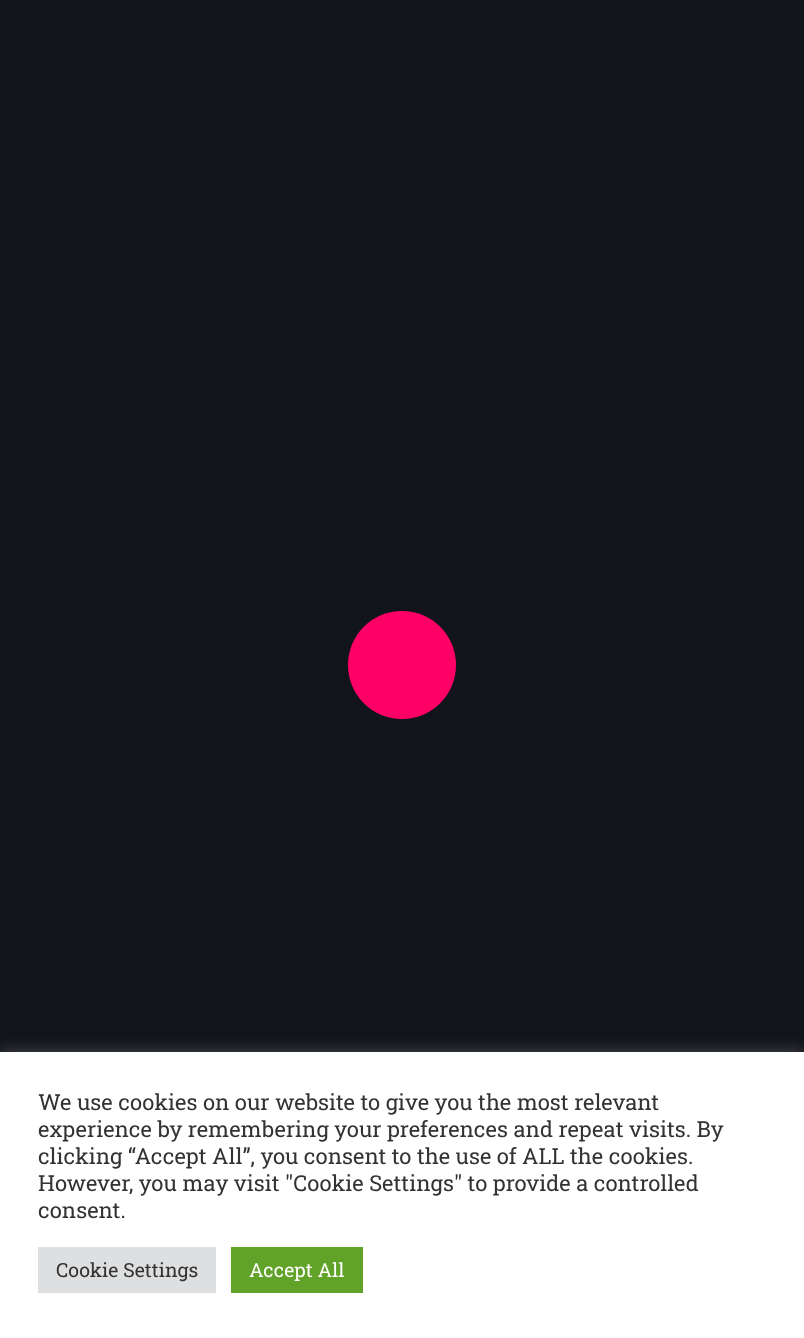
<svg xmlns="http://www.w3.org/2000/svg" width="804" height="1338">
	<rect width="100%" height="100%" fill="#12141C" />
	<circle cx="402" cy="665" r="54" fill="#FF0066" />
	<rect x="0" y="1050" width="804" height="287" fill="#ACABAB" fill-opacity="0.3" filter="blur(7.5px)" />
	<rect x="0" y="1052" width="804" height="286" fill="#FFFFFF" />
	<g font-family="Roboto Slab" font-size="22" fill="#333333">
		<text x="38" y="1110">We use cookies on our website to give you the most relevant</text>
		<text x="38" y="1137">experience by remembering your preferences and repeat visits. By</text>
		<text x="38" y="1164">clicking “Accept All”, you consent to the use of ALL the cookies.</text>
		<text x="38" y="1191">However, you may visit "Cookie Settings" to provide a controlled</text>
		<text x="38" y="1218">consent.</text>
	</g>
	<rect x="38" y="1247" width="178" height="46" fill="#DEDFE0" />
	<text x="56" y="1277" font-family="Roboto Slab" font-size="19.5" fill="#333333">Cookie Settings</text>
	<rect x="231" y="1247" width="132" height="46" fill="#61A229" />
	<text x="249" y="1277" font-family="Roboto Slab" font-size="19.5" fill="#FFFFFF">Accept All</text>
</svg>
